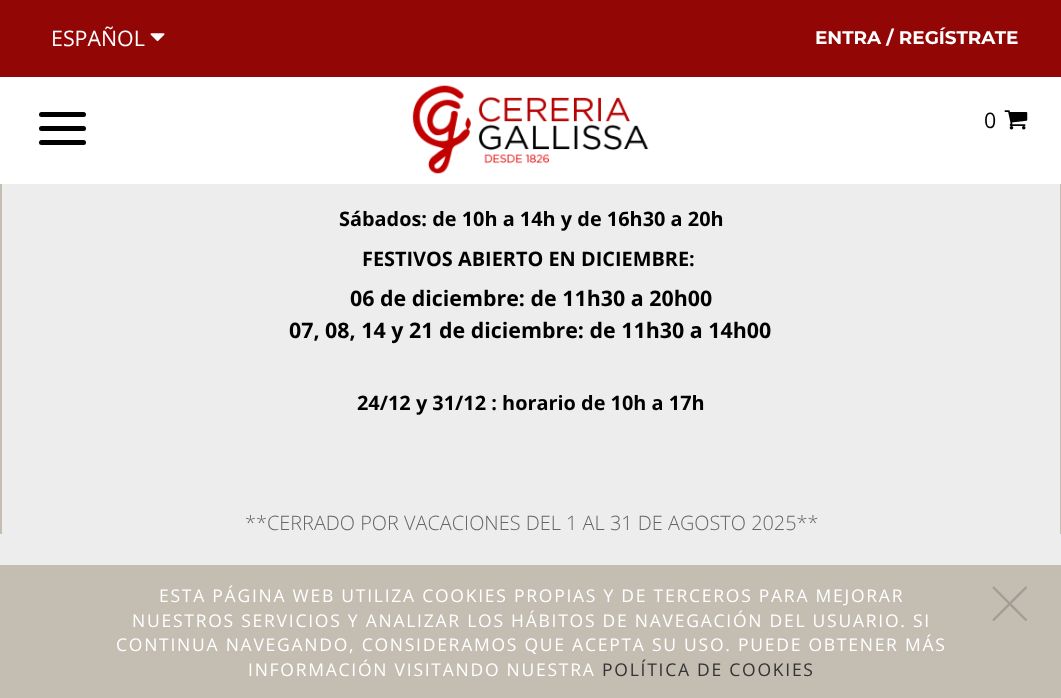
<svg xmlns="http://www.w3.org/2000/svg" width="1061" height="698">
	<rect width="100%" height="100%" fill="#EDEDED" />
	<rect x="1" y="59" width="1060" height="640" fill="none" stroke="#C3BDB2" stroke-width="2" />
	<rect x="0" y="0" width="1061" height="77" fill="#930606" />
	<text x="51" y="46" font-family="Open Sans" font-size="21.4" fill="#FFFFFF">ESPAÑOL</text>
	<image x="150" y="33" width="15" height="9" href="assets/img1.png" />
	<text x="815" y="44" font-family="Montserrat" font-size="18.4" font-weight="700" fill="#FFFFFF">ENTRA / REGÍSTRATE</text>
	<rect x="0" y="77" width="1061" height="107" fill="#FFFFFF" />
	<rect x="39" y="112" width="47" height="5" rx="2.5" fill="#000000" />
	<rect x="39" y="126" width="47" height="5" rx="2.5" fill="#000000" />
	<rect x="39" y="140" width="47" height="5" rx="2.5" fill="#000000" />
	<image x="412" y="85" width="237" height="89" href="assets/img2.png" />
	<text x="984" y="128" font-family="Open Sans" font-size="21.4" fill="#000000">0</text>
	<image x="1004" y="110" width="24" height="20" href="assets/img3.png" />
	<rect x="0" y="534" width="1061" height="31" fill="#EDEDED" />
	<rect x="2" y="565" width="1058" height="133" fill="#C3BDB2" />
	<g font-family="Open Sans" font-size="17.5" letter-spacing="1.75" fill="#FFFFFF">
		<text x="159" y="602">ESTA PÁGINA WEB UTILIZA COOKIES PROPIAS Y DE TERCEROS PARA MEJORAR</text>
		<text x="132" y="627">NUESTROS SERVICIOS Y ANALIZAR LOS HÁBITOS DE NAVEGACIÓN DEL USUARIO. SI</text>
		<text x="116" y="651">CONTINUA NAVEGANDO, CONSIDERAMOS QUE ACEPTA SU USO. PUEDE OBTENER MÁS</text>
		<text x="248" y="676">INFORMACIÓN VISITANDO NUESTRA</text>
	</g>
	<text x="602" y="676" font-family="Open Sans" font-size="17.5" letter-spacing="1.75" fill="#333333">POLÍTICA DE COOKIES</text>
	<path d="M1026.5 587L993 620.5M1026.5 620.5L993 587" fill="none" stroke="#A39D95" stroke-width="2.3" />
	<g font-family="Open Sans" font-size="19.9" font-weight="700" fill="#000000">
		<text x="339" y="226">Sábados: de 10h a 14h y de 16h30 a 20h</text>
		<text x="362" y="266">FESTIVOS ABIERTO EN DICIEMBRE:</text>
	</g>
	<g font-family="Open Sans" font-size="21.4" font-weight="700" fill="#000000">
		<text x="350" y="306">06 de diciembre: de 11h30 a 20h00</text>
		<text x="289" y="338">07, 08, 14 y 21 de diciembre: de 11h30 a 14h00</text>
	</g>
	<text x="357" y="410" font-family="Open Sans" font-size="19.9" font-weight="700" fill="#000000">24/12 y 31/12 : horario de 10h a 17h</text>
	<text x="245" y="530" font-family="Open Sans" font-size="19.9" font-weight="300" fill="#666666">**CERRADO POR VACACIONES DEL 1 AL 31 DE AGOSTO 2025**</text>
</svg>
